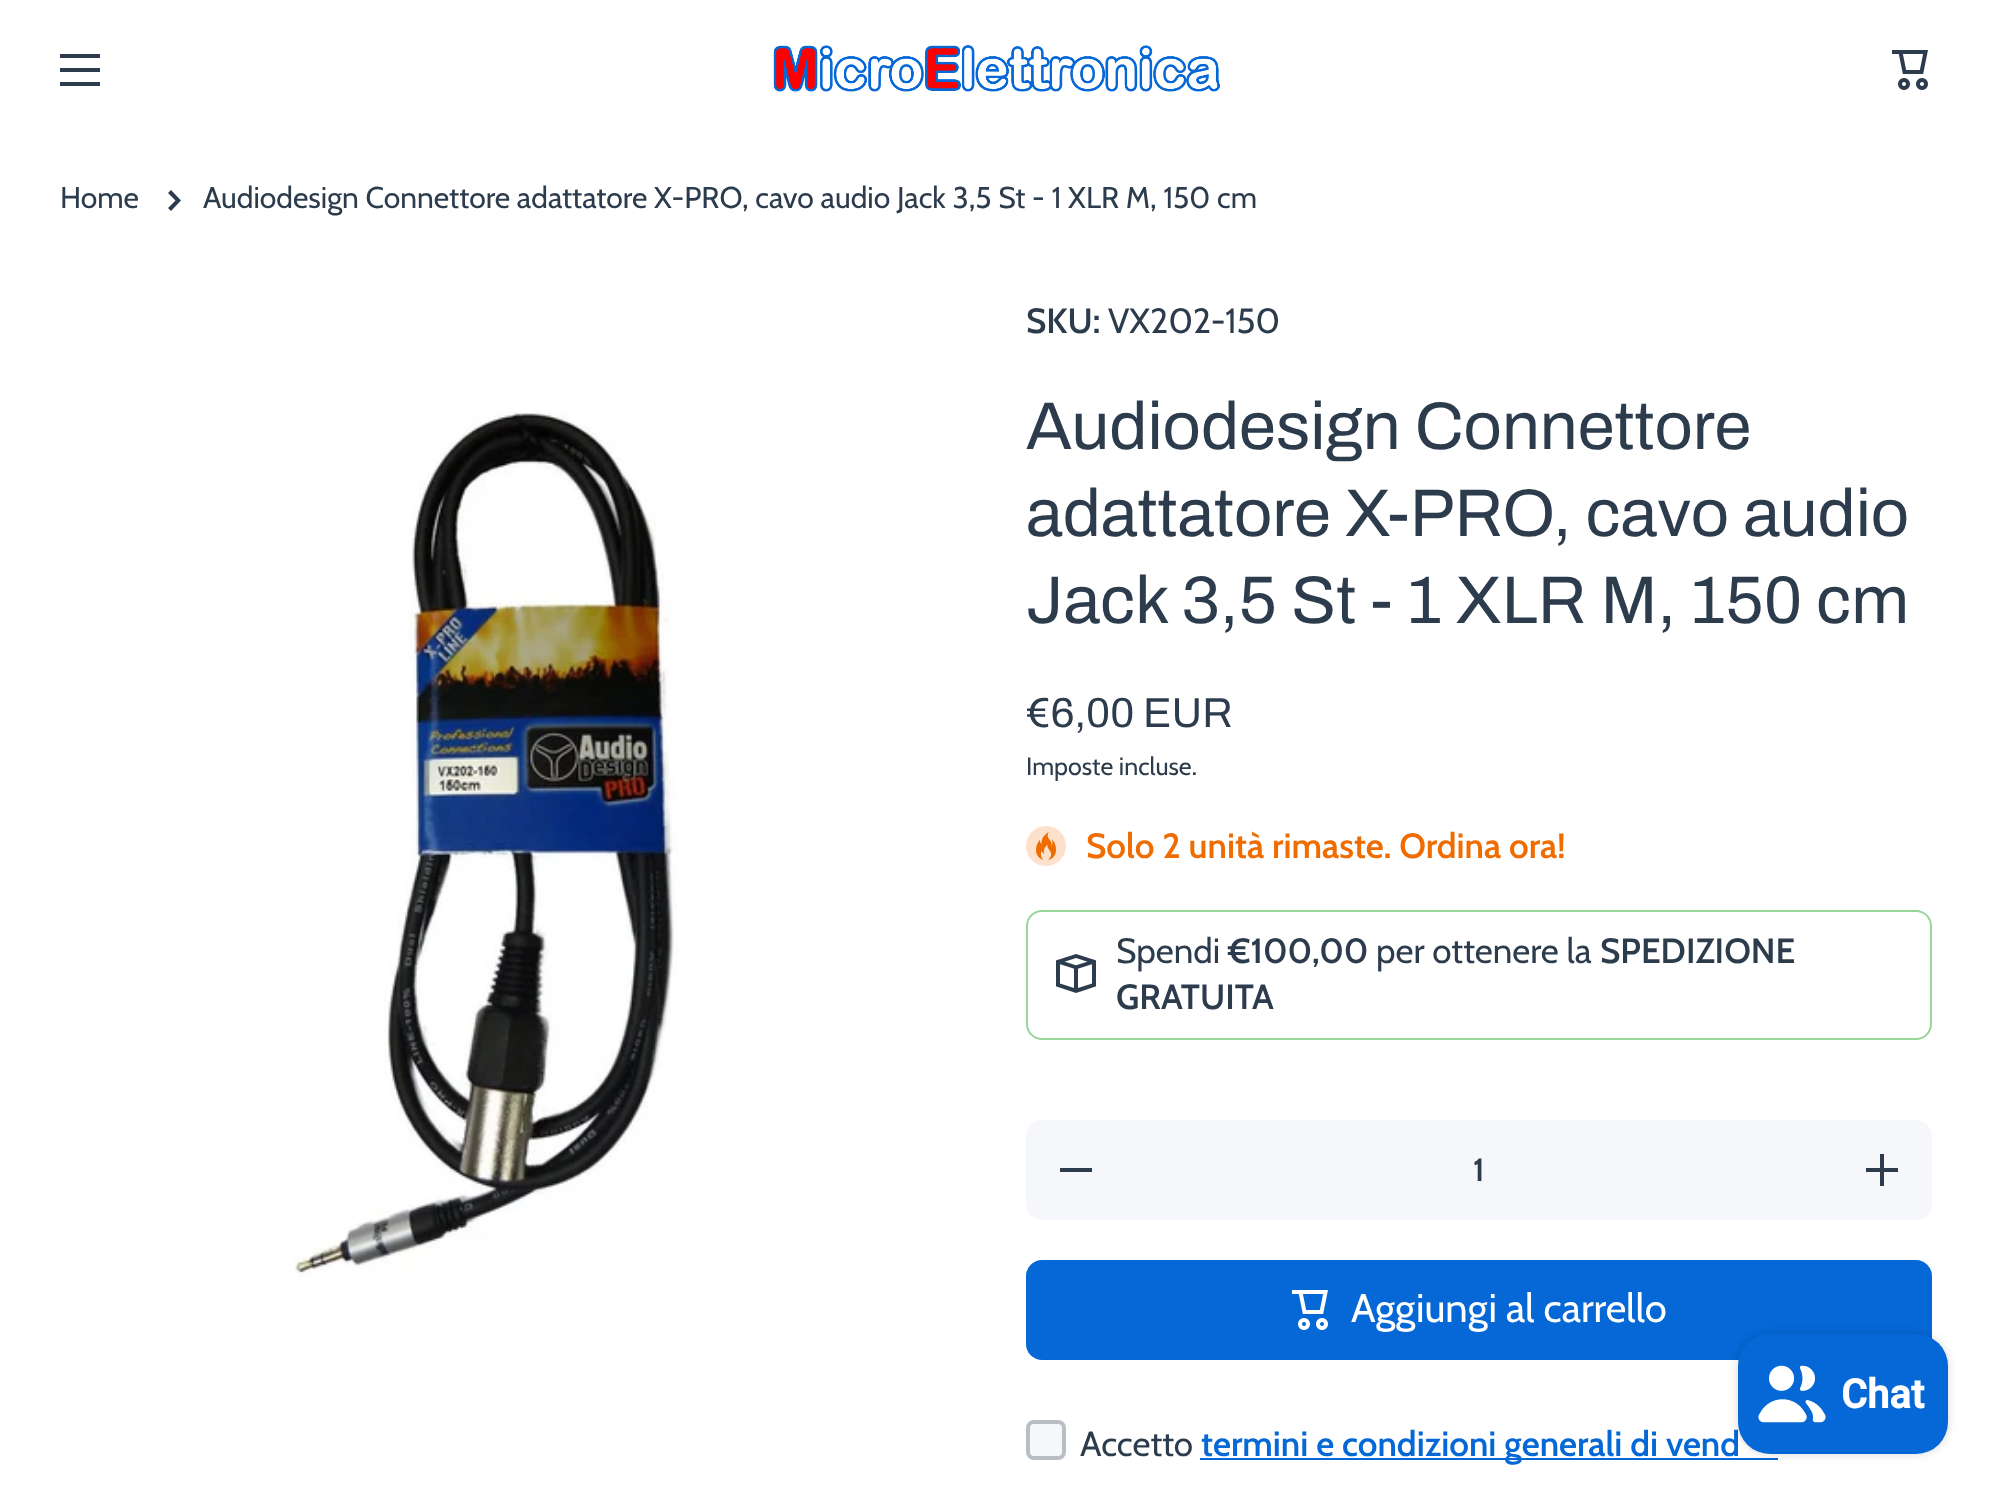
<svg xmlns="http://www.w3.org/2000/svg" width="1991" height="1495">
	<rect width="100%" height="100%" fill="#FFFFFF" />
	<rect x="60" y="54" width="40" height="4" fill="#2C3C4D" />
	<rect x="60" y="68" width="40" height="4" fill="#2C3C4D" />
	<rect x="60" y="82" width="40" height="4" fill="#2C3C4D" />
	<image x="773" y="45" width="448" height="47" href="assets/img1.png" />
	<image x="1892" y="50" width="36" height="40" href="assets/img2.png" />
	<text x="60" y="208" font-family="Cabin" font-size="30" fill="#2C3C4D">Home</text>
	<path d="M175.5 200.5L168 193L171 190L181 200.5L171 211L168 208Z" fill="#2C3C4D" fill-rule="evenodd" />
	<text x="203" y="208" font-family="Cabin" font-size="30" fill="#2C3C4D">Audiodesign Connettore adattatore X-PRO, cavo audio Jack 3,5 St - 1 XLR M, 150 cm</text>
	<image x="294" y="411" width="383" height="866" href="assets/img3.png" />
	<text x="1026" y="333" font-family="Cabin" font-size="35" font-weight="600" fill="#2C3C4D">SKU:</text>
	<text x="1108" y="333" font-family="Cabin" font-size="35" fill="#2C3C4D">VX202-150</text>
	<g font-family="Archivo" font-size="67.25" fill="#2C3C4D">
		<text x="1026" y="449">Audiodesign Connettore</text>
		<text x="1026" y="536">adattatore X-PRO, cavo audio</text>
		<text x="1026" y="623">Jack 3,5 St - 1 XLR M, 150 cm</text>
	</g>
	<text x="1026" y="727" font-family="Archivo" font-size="42" fill="#2C3C4D">€6,00 EUR</text>
	<text x="1026" y="775" font-family="Cabin" font-size="25" fill="#2C3C4D">Imposte incluse.</text>
	<image x="1026" y="826" width="40" height="40" href="assets/img4.png" />
	<text x="1086" y="858" font-family="Cabin" font-size="35" font-weight="600" fill="#EF6C00">Solo 2 unità rimaste. Ordina ora!</text>
	<rect x="1027" y="911" width="904" height="128" rx="15" fill="none" stroke="#99D599" stroke-width="2" />
	<image x="1056" y="954" width="40" height="39" href="assets/img5.png" />
	<text x="1116" y="963" font-family="Cabin" font-size="35" fill="#2C3C4D">Spendi</text>
	<text x="1228" y="963" font-family="Cabin" font-size="35" font-weight="600" fill="#2C3C4D">€100,00</text>
	<text x="1376" y="963" font-family="Cabin" font-size="35" fill="#2C3C4D">per ottenere la</text>
	<g font-family="Cabin" font-size="35" font-weight="600" fill="#2C3C4D">
		<text x="1600" y="963">SPEDIZIONE</text>
		<text x="1116" y="1009">GRATUITA</text>
	</g>
	<rect x="1026" y="1120" width="906" height="100" rx="16" fill="#F6F7FA" />
	<rect x="1060" y="1168" width="32" height="4" fill="#2C3C4D" />
	<text x="1473" y="1181" font-family="Cabin" font-size="32" font-weight="600" fill="#2C3C4D">1</text>
	<image x="1866" y="1154" width="32" height="32" href="assets/img6.png" />
	<rect x="1026" y="1260" width="906" height="100" rx="16" fill="#0568D6" />
	<image x="1292" y="1290" width="36" height="40" href="assets/img7.png" />
	<text x="1351" y="1322" font-family="Cabin" font-size="40" fill="#FFFFFF">Aggiungi al carrello</text>
	<rect x="1026" y="1420" width="40" height="40" rx="8" fill="#F6F7FA" />
	<rect x="1028" y="1422" width="36" height="36" rx="6" fill="none" stroke="#2C3C4D" stroke-opacity="0.3" stroke-width="4" />
	<text x="1080" y="1456" font-family="Cabin" font-size="35" fill="#2C3C4D">Accetto</text>
	<rect x="1200" y="1458" width="578" height="2" fill="#0568D6" />
	<text x="1201" y="1456" font-family="Cabin" font-size="35" font-weight="600" fill="#0568D6">termini e condizioni generali di vend</text>
	<rect x="1738" y="1334" width="210" height="120" rx="32" fill="#000000" fill-opacity="0.15" filter="blur(5px)" />
	<rect x="1738" y="1334" width="210" height="120" rx="32" fill="#0568D6" />
	<image x="1758" y="1365" width="68" height="58" href="assets/img8.png" />
	<text x="1841" y="1408" font-family="Roboto" font-size="40" font-weight="700" fill="#FFFFFF">Chat</text>
</svg>
